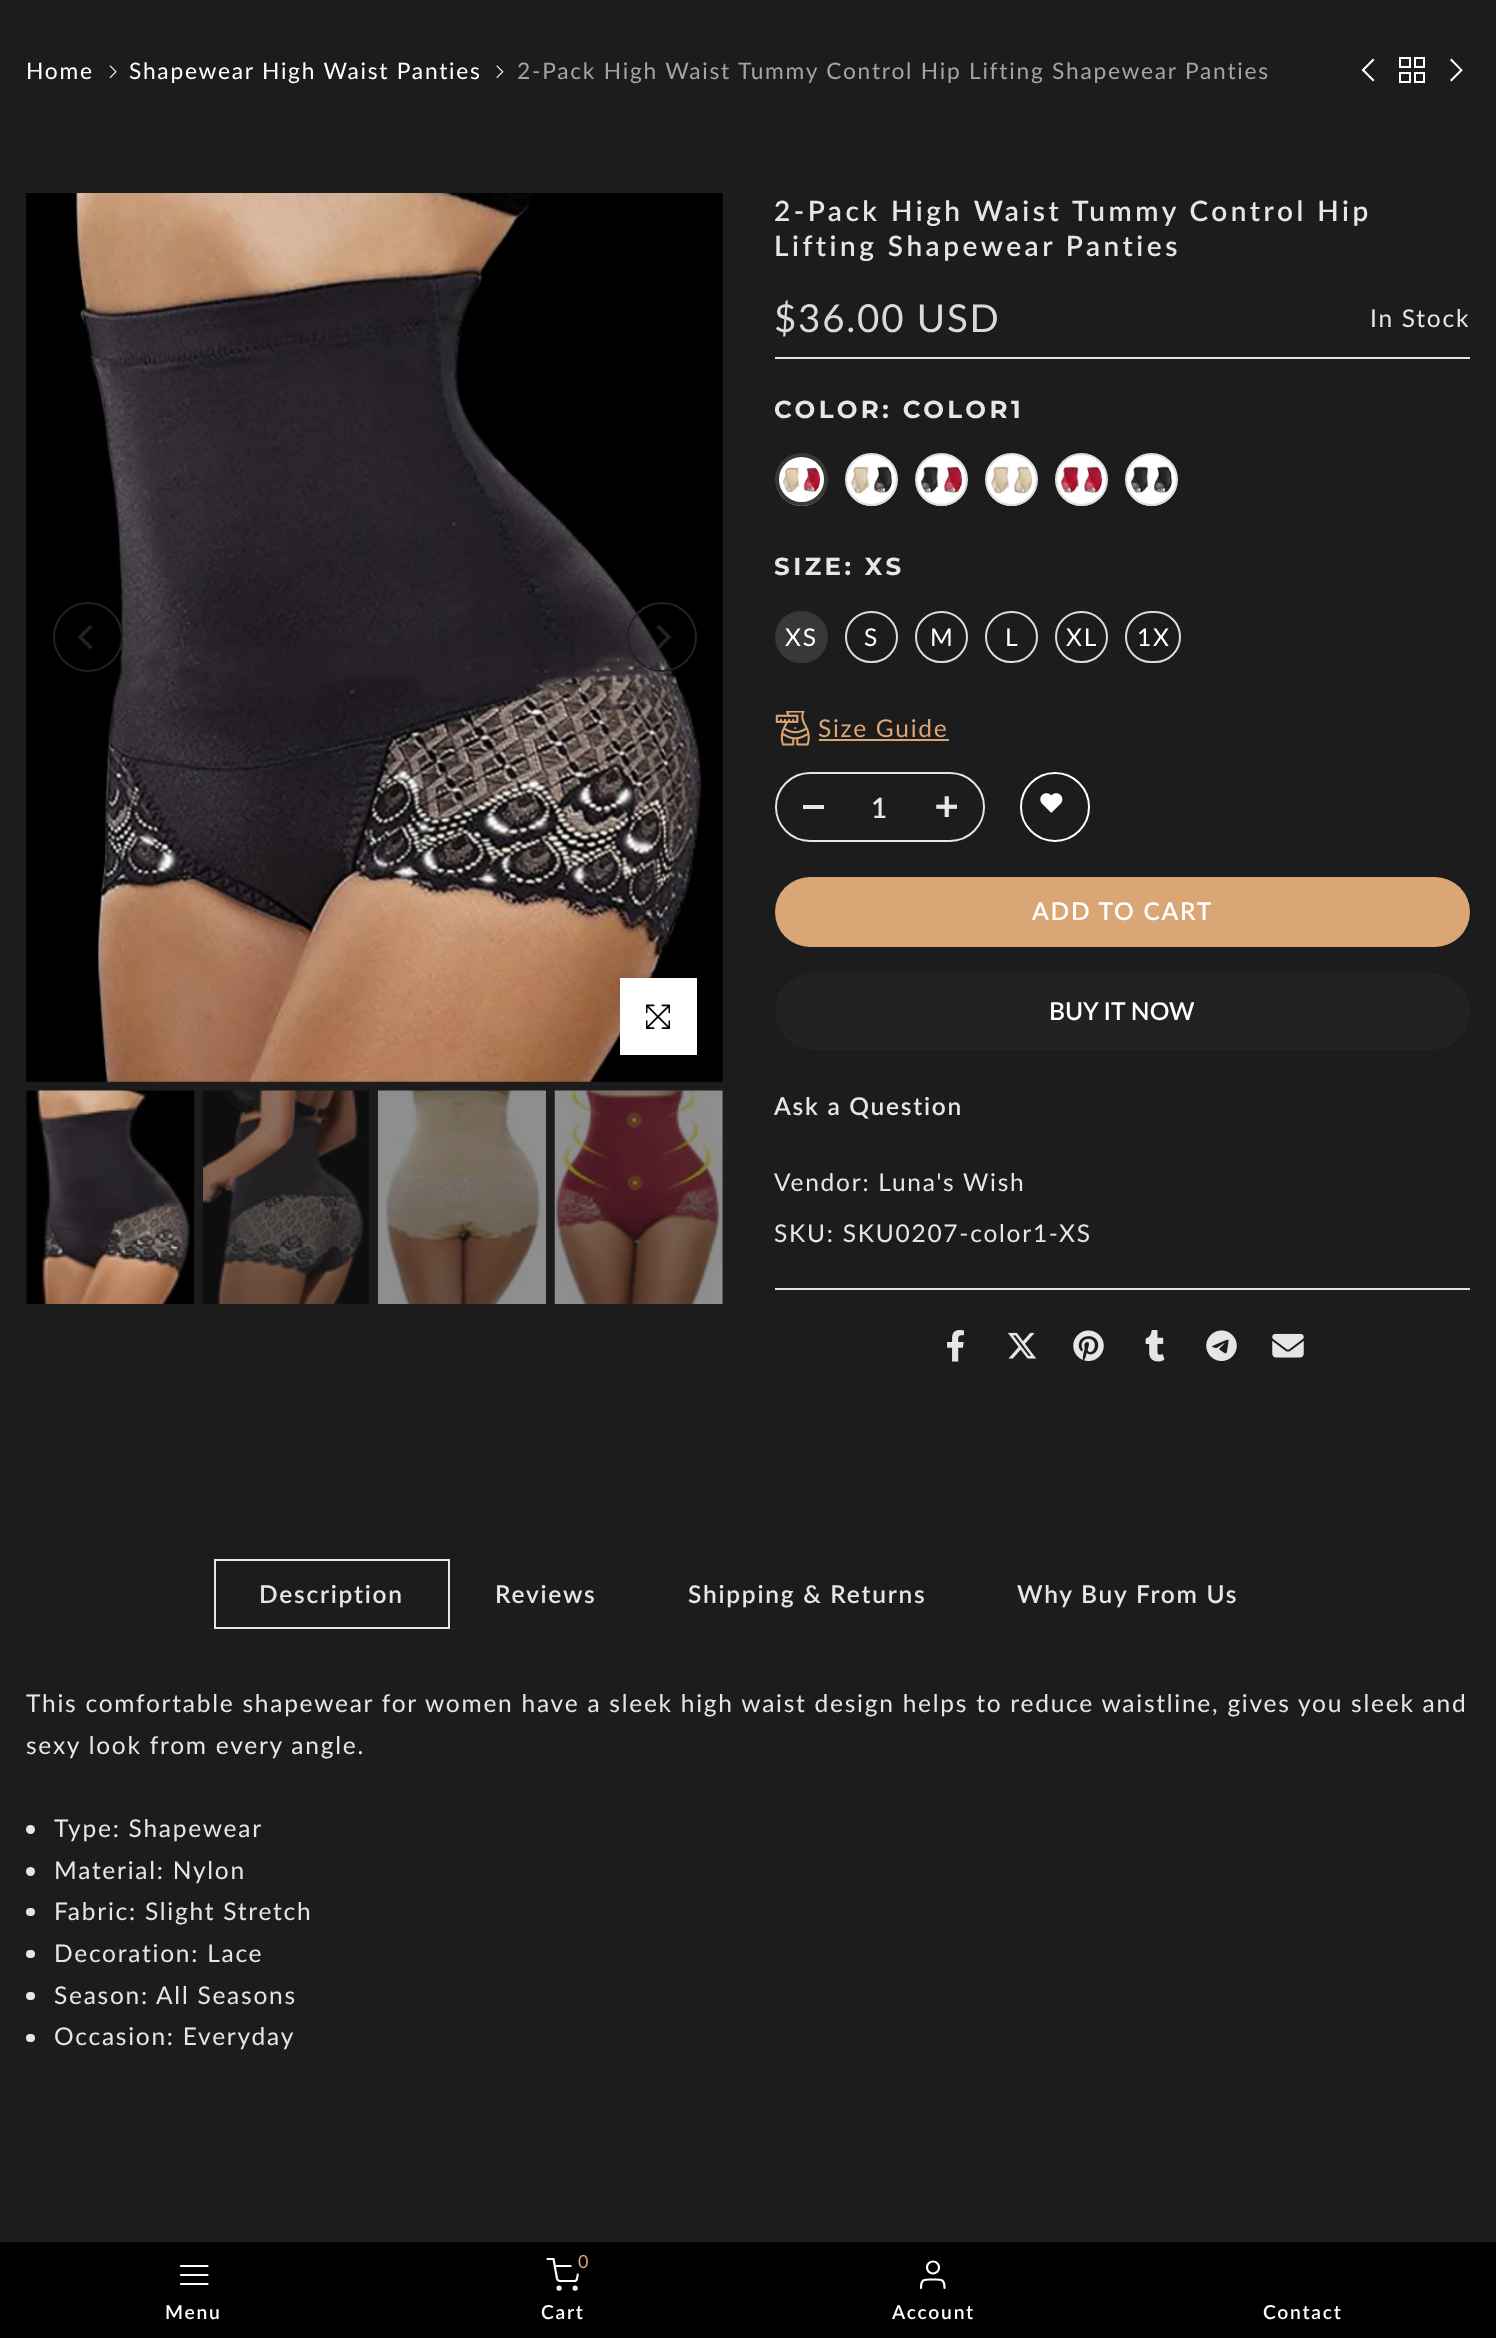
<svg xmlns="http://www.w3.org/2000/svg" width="1496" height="2338">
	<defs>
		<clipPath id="clip1"><rect x="546" y="2258" width="35" height="35" /></clipPath>
	</defs>
	<rect width="100%" height="100%" fill="#1C1C1C" />
	<text x="26" y="79" font-family="Lato" font-size="22.75" letter-spacing="1.75" fill="#FFFFFF">Home</text>
	<image x="109" y="65" width="8" height="14" href="assets/img1.png" />
	<text x="129" y="79" font-family="Lato" font-size="22.75" letter-spacing="1.75" fill="#FFFFFF">Shapewear High Waist Panties</text>
	<image x="496" y="65" width="8" height="14" href="assets/img2.png" />
	<text x="517" y="79" font-family="Lato" font-size="22.75" letter-spacing="1.75" fill="#A4A4A4">2-Pack High Waist Tummy Control Hip Lifting Shapewear Panties</text>
	<path d="M1373 58.5L1361.5 70L1373 81.5L1374.5 80L1364.5 70L1374.5 60Z" fill="#FFFFFF" />
	<rect x="1400" y="58" width="10" height="9" fill="none" stroke="#FFFFFF" stroke-width="2" />
	<rect x="1415" y="58" width="9" height="9" fill="none" stroke="#FFFFFF" stroke-width="2" />
	<rect x="1415" y="73" width="9" height="9" fill="none" stroke="#FFFFFF" stroke-width="2" />
	<rect x="1400" y="73" width="10" height="9" fill="none" stroke="#FFFFFF" stroke-width="2" />
	<path d="M1451.5 58.5L1450 60L1460 70L1450 80L1451.5 81.5L1463 70L1462 69.5Z" fill="#FFFFFF" />
	<image x="26" y="193" width="697" height="889" href="assets/img3.png" />
	<circle cx="88" cy="637" r="34" fill="none" stroke="#222222" stroke-width="2" />
	<image x="77" y="625" width="16" height="24" href="assets/img4.png" />
	<circle cx="662" cy="637" r="34" fill="none" stroke="#222222" stroke-width="2" />
	<image x="656" y="625" width="16" height="24" href="assets/img5.png" />
	<rect x="620" y="978" width="77" height="77" fill="#000000" fill-opacity="0.09" filter="blur(4.5px)" />
	<rect x="620" y="978" width="77" height="77" fill="#FFFFFF" />
	<image x="646" y="1004" width="24" height="25" href="assets/img6.png" />
	<image x="26" y="1090" width="169" height="214" href="assets/img7.png" />
	<image x="203" y="1090" width="166" height="214" href="assets/img8.png" />
	<image x="378" y="1090" width="168" height="214" href="assets/img9.png" />
	<image x="554" y="1090" width="169" height="214" href="assets/img10.png" />
	<g font-family="Lato" font-size="28" font-weight="600" letter-spacing="3.5" fill="#E6E6E6">
		<text x="774" y="221">2-Pack High Waist Tummy Control Hip</text>
		<text x="774" y="256">Lifting Shapewear Panties</text>
	</g>
	<rect x="775" y="357" width="695" height="2" fill="#E5E5E5" />
	<text x="774" y="332" font-family="Lato" font-size="38.5" letter-spacing="1.75" fill="#DED8D8">$36.00 USD</text>
	<text x="1370" y="327" font-family="Lato" font-size="24.5" letter-spacing="1.75" fill="#E6E6E6">In Stock</text>
	<text x="774" y="418" font-family="Montserrat" font-size="24.5" font-weight="700" letter-spacing="3.5" fill="#E6E6E6">COLOR: COLOR1</text>
	<image x="778" y="454" width="47" height="52" href="assets/img11.png" />
	<circle cx="801.5" cy="479.5" r="20.5" fill="none" stroke="#FFFFFF" stroke-width="4" />
	<circle cx="801.5" cy="479.5" r="24.5" fill="none" stroke="#383838" stroke-width="4" />
	<image x="847" y="454" width="49" height="52" href="assets/img12.png" />
	<circle cx="871.5" cy="479.5" r="22.5" fill="none" stroke="#FFFFFF" stroke-width="4" />
	<circle cx="871.5" cy="479.5" r="25.5" fill="none" stroke="#DDDDDD" stroke-width="2" />
	<image x="917" y="454" width="49" height="52" href="assets/img13.png" />
	<circle cx="941.5" cy="479.5" r="22.5" fill="none" stroke="#FFFFFF" stroke-width="4" />
	<circle cx="941.5" cy="479.5" r="25.5" fill="none" stroke="#DDDDDD" stroke-width="2" />
	<image x="987" y="454" width="49" height="52" href="assets/img14.png" />
	<circle cx="1011.5" cy="479.5" r="22.5" fill="none" stroke="#FFFFFF" stroke-width="4" />
	<circle cx="1011.5" cy="479.5" r="25.5" fill="none" stroke="#DDDDDD" stroke-width="2" />
	<image x="1057" y="454" width="49" height="52" href="assets/img15.png" />
	<circle cx="1081.5" cy="479.5" r="22.5" fill="none" stroke="#FFFFFF" stroke-width="4" />
	<circle cx="1081.5" cy="479.5" r="25.5" fill="none" stroke="#DDDDDD" stroke-width="2" />
	<image x="1127" y="454" width="49" height="52" href="assets/img16.png" />
	<circle cx="1151.5" cy="479.5" r="22.5" fill="none" stroke="#FFFFFF" stroke-width="4" />
	<circle cx="1151.5" cy="479.5" r="25.5" fill="none" stroke="#DDDDDD" stroke-width="2" />
	<text x="774" y="575" font-family="Montserrat" font-size="24.5" font-weight="700" letter-spacing="3.5" fill="#E6E6E6">SIZE: XS</text>
	<rect x="776" y="612" width="51" height="50" rx="25" fill="#383838" stroke="#383838" stroke-width="2" />
	<text x="785" y="646" font-family="Lato" font-size="24.5" letter-spacing="1.75" fill="#FFFFFF">XS</text>
	<rect x="846" y="612" width="51" height="50" rx="25" fill="none" stroke="#DDDDDD" stroke-width="2" />
	<text x="864" y="646" font-family="Lato" font-size="24.5" letter-spacing="1.75" fill="#FFFFFF">S</text>
	<rect x="916" y="612" width="51" height="50" rx="25" fill="none" stroke="#DDDDDD" stroke-width="2" />
	<text x="930" y="646" font-family="Lato" font-size="24.5" letter-spacing="1.75" fill="#FFFFFF">M</text>
	<rect x="986" y="612" width="51" height="50" rx="25" fill="none" stroke="#DDDDDD" stroke-width="2" />
	<text x="1005" y="646" font-family="Lato" font-size="24.5" letter-spacing="1.75" fill="#FFFFFF">L</text>
	<rect x="1056" y="612" width="51" height="50" rx="25" fill="none" stroke="#DDDDDD" stroke-width="2" />
	<text x="1066" y="646" font-family="Lato" font-size="24.5" letter-spacing="1.75" fill="#FFFFFF">XL</text>
	<rect x="1126" y="612" width="54" height="50" rx="25" fill="none" stroke="#DDDDDD" stroke-width="2" />
	<text x="1137" y="646" font-family="Lato" font-size="24.5" letter-spacing="1.75" fill="#FFFFFF">1X</text>
	<image x="775" y="711" width="35" height="35" href="assets/img17.png" />
	<text x="818" y="737" font-family="Lato" font-size="24.5" letter-spacing="1.75" fill="#DAA676">Size Guide</text>
	<rect x="819" y="739" width="130" height="2" fill="#DAA676" />
	<rect x="776" y="773" width="208" height="68" rx="34" fill="none" stroke="#E6E6E6" stroke-width="2" />
	<rect x="803" y="805" width="21" height="4" fill="#E6E6E6" />
	<text x="871" y="818" font-family="Lato" font-size="28" font-weight="600" fill="#E6E6E6">1</text>
	<image x="936" y="796" width="21" height="21" href="assets/img18.png" />
	<circle cx="1055" cy="807" r="34" fill="none" stroke="#FFFFFF" stroke-width="2" />
	<image x="1040" y="793" width="23" height="20" href="assets/img19.png" />
	<rect x="775" y="877" width="695" height="70" rx="35" fill="#DAA676" />
	<text x="1032" y="920" font-family="Lato" font-size="24.5" font-weight="600" letter-spacing="1.75" fill="#FFFFFF">ADD TO CART</text>
	<rect x="775" y="973" width="695" height="77" rx="38.5" fill="#222222" />
	<text x="1049" y="1020" font-family="Lato" font-size="24.5" font-weight="600" fill="#FFFFFF">BUY IT NOW</text>
	<text x="774" y="1115" font-family="Lato" font-size="24.5" font-weight="600" letter-spacing="1.75" fill="#E6E6E6">Ask a Question</text>
	<g font-family="Lato" font-size="24.5" letter-spacing="1.75" fill="#E6E6E6">
		<text x="774" y="1191">Vendor: Luna's Wish</text>
		<text x="774" y="1242">SKU: SKU0207-color1-XS</text>
	</g>
	<rect x="775" y="1288" width="695" height="2" fill="#E1E1E1" />
	<image x="947" y="1330" width="17" height="32" href="assets/img20.png" />
	<image x="1008" y="1332" width="29" height="27" href="assets/img21.png" />
	<image x="1073" y="1330" width="31" height="31" href="assets/img22.png" />
	<image x="1145" y="1330" width="20" height="32" href="assets/img23.png" />
	<image x="1206" y="1330" width="31" height="31" href="assets/img24.png" />
	<image x="1272" y="1333" width="32" height="25" href="assets/img25.png" />
	<rect x="215" y="1560" width="234" height="68" fill="none" stroke="#E6E6E6" stroke-width="2" />
	<g font-family="Lato" font-size="24.5" font-weight="600" letter-spacing="1.75" fill="#E6E6E6">
		<text x="259" y="1603">Description</text>
		<text x="495" y="1603">Reviews</text>
		<text x="688" y="1603">Shipping &amp; Returns</text>
		<text x="1017" y="1603">Why Buy From Us</text>
	</g>
	<g font-family="Lato" font-size="24.5" letter-spacing="1.75" fill="#E6E6E6">
		<text x="26" y="1712">This comfortable shapewear for women have a sleek high waist design helps to reduce waistline, gives you sleek and</text>
		<text x="26" y="1754">sexy look from every angle.</text>
	</g>
	<circle cx="30.5" cy="1829.5" r="4.5" fill="#E6E6E6" />
	<text x="54" y="1837" font-family="Lato" font-size="24.5" letter-spacing="1.75" fill="#E6E6E6">Type: Shapewear</text>
	<circle cx="30.5" cy="1871.5" r="4.5" fill="#E6E6E6" />
	<text x="54" y="1879" font-family="Lato" font-size="24.5" letter-spacing="1.75" fill="#E6E6E6">Material: Nylon</text>
	<rect x="26" y="1908" width="9" height="8" rx="4" fill="#E6E6E6" />
	<text x="54" y="1920" font-family="Lato" font-size="24.5" letter-spacing="1.75" fill="#E6E6E6">Fabric: Slight Stretch</text>
	<rect x="26" y="1950" width="9" height="8" rx="4" fill="#E6E6E6" />
	<text x="54" y="1962" font-family="Lato" font-size="24.5" letter-spacing="1.75" fill="#E6E6E6">Decoration: Lace</text>
	<rect x="26" y="1992" width="9" height="8" rx="4" fill="#E6E6E6" />
	<text x="54" y="2004" font-family="Lato" font-size="24.5" letter-spacing="1.75" fill="#E6E6E6">Season: All Seasons</text>
	<rect x="26" y="2034" width="9" height="8" rx="4" fill="#E6E6E6" />
	<text x="54" y="2045" font-family="Lato" font-size="24.5" letter-spacing="1.75" fill="#E6E6E6">Occasion: Everyday</text>
	<rect x="0" y="2242" width="1496" height="96" fill="#000000" />
	<path d="M181 2275H207.5M181 2266H207.5M181 2284H207.5" fill="none" stroke="#FFFFFF" stroke-width="2.2" stroke-linecap="round" stroke-linejoin="round" />
	<text x="165" y="2319" font-family="Lato" font-size="19.25" font-weight="600" letter-spacing="1.75" fill="#FFFFFF">Menu</text>
	<g clip-path="url(#clip1)">
		<path d="M547.5 2259H553.5L557 2278.5C557.5 2280 558.5 2281 560 2281H574.5C575.5 2281 577 2280 577 2278.5L579.5 2266H555" fill="none" stroke="#FFFFFF" stroke-width="2.2" stroke-linecap="round" stroke-linejoin="round" />
	</g>
	<circle cx="575.2" cy="2288.1" r="1.5" fill="none" stroke="#FFFFFF" stroke-width="2.2" />
	<rect x="572" y="2251" width="27" height="26" rx="13" fill="#000000" fill-opacity="0.3" filter="blur(2.5px)" />
	<circle cx="584" cy="2262" r="13" fill="#000000" />
	<text x="578" y="2268" font-family="Lato" font-size="18" fill="#DAA676">0</text>
	<circle cx="559.1" cy="2288.1" r="1.5" fill="none" stroke="#FFFFFF" stroke-width="2.2" />
	<text x="541" y="2319" font-family="Lato" font-size="19.25" font-weight="600" letter-spacing="1.75" fill="#FFFFFF">Cart</text>
	<circle cx="933" cy="2267.5" r="6" fill="none" stroke="#FFFFFF" stroke-width="2.2" />
	<path d="M944.5 2288C944.5 2278.5 941 2279.5 933 2279.5C924.5 2279.5 921 2278.5 921 2288" fill="none" stroke="#FFFFFF" stroke-width="2.2" stroke-linecap="round" stroke-linejoin="round" />
	<g font-family="Lato" font-size="19.25" font-weight="600" letter-spacing="1.75" fill="#FFFFFF">
		<text x="892" y="2319">Account</text>
		<text x="1263" y="2319">Contact</text>
	</g>
</svg>
